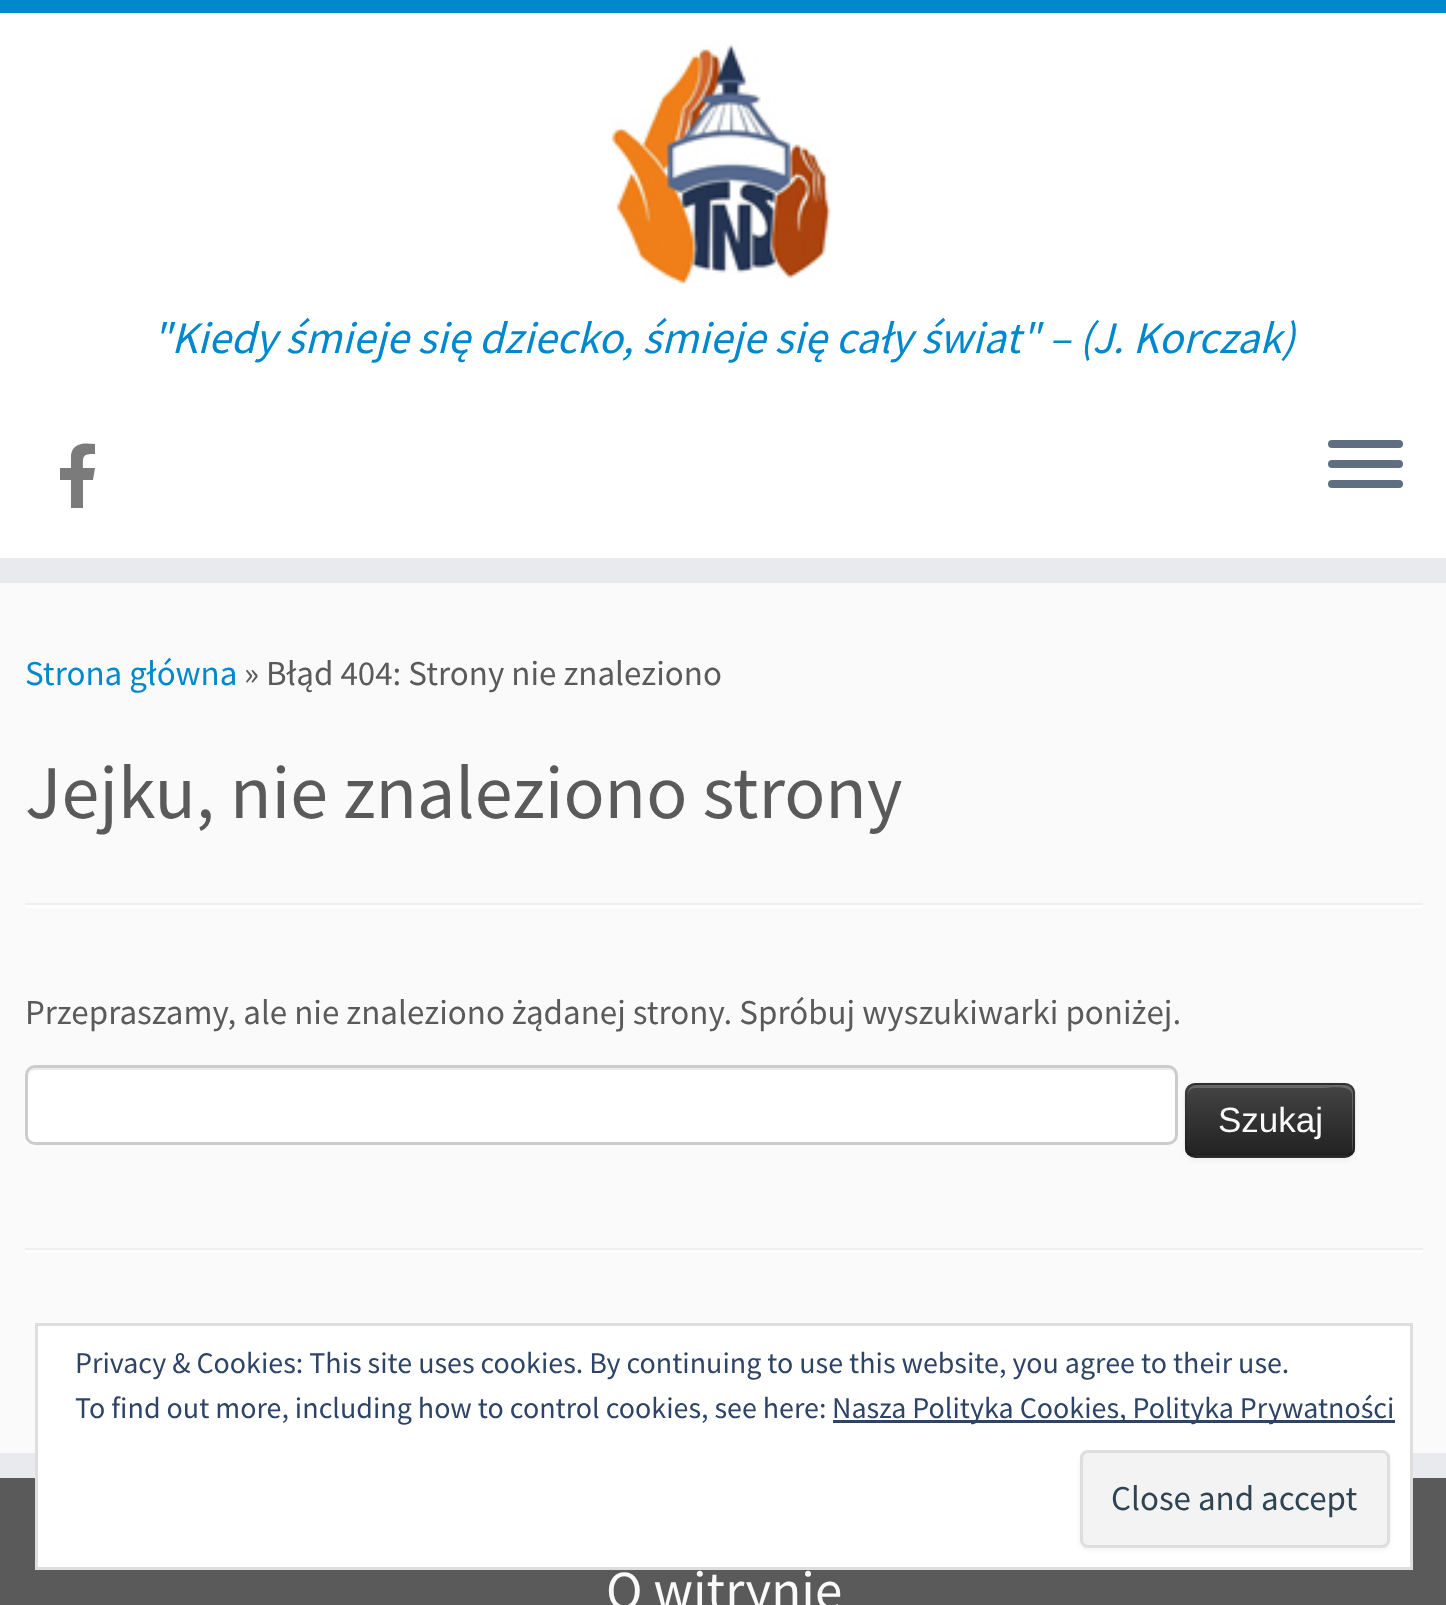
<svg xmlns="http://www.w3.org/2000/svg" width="1446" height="1605">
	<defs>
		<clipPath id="clip1"><rect x="1185" y="1083" width="170" height="75" rx="10" /></clipPath>
		<linearGradient id="g1" gradientUnits="userSpaceOnUse" x1="1270" y1="1085" x2="1270" y2="1155"><stop offset="0" stop-color="#444444" /><stop offset="1" stop-color="#222222" /></linearGradient>
	</defs>
	<rect width="100%" height="100%" fill="#FAFAFA" />
	<rect x="0" y="13" width="1446" height="545" fill="#FFFFFF" />
	<rect x="0" y="0" width="1446" height="13" fill="#0088CC" />
	<rect x="0" y="558" width="1446" height="25" fill="#E9EAEE" />
	<image x="611" y="41" width="220" height="244" href="assets/img1.png" />
	<text x="152" y="353" font-family="Source Sans Pro" font-size="45" font-style="italic" fill="#0088CC">"Kiedy śmieje się dziecko, śmieje się cały świat" – (J. Korczak)</text>
	<path d="M93 480H83V508H71V480H60V468H71V455C73 442 85 443 95 444V454C82 454 83 456 83 468H95Z" fill="#7B7B7B" />
	<rect x="1328" y="440" width="75" height="8" rx="4" fill="#5F6F81" />
	<rect x="1328" y="460" width="75" height="8" rx="4" fill="#5F6F81" />
	<rect x="1328" y="480" width="75" height="8" rx="4" fill="#5F6F81" />
	<text x="25" y="685" font-family="Source Sans Pro" font-size="35" fill="#0088CC">Strona główna</text>
	<text x="244" y="685" font-family="Source Sans Pro" font-size="35" fill="#5A5A5A">» Błąd 404: Strony nie znaleziono</text>
	<text x="25" y="818" font-family="Source Sans Pro" font-size="76" fill="#5A5A5A">Jejku, nie znaleziono strony</text>
	<rect x="25" y="903" width="1398" height="2" fill="#EEEEEE" />
	<rect x="25" y="905" width="1398" height="3" fill="#FFFFFF" />
	<text x="25" y="1024" font-family="Source Sans Pro" font-size="35" fill="#5A5A5A">Przepraszamy, ale nie znaleziono żądanej strony. Spróbuj wyszukiwarki poniżej.</text>
	<rect x="25" y="1065" width="1153" height="80" rx="10" fill="#FFFFFF" />
	<path d="M35 1070H1168C1172 1070 1175 1073 1175 1078C1175 1073 1173 1068 1167 1068H36C30 1068 28 1073 28 1078C28 1073 31 1070 35 1070Z" fill="#ECECEC" />
	<rect x="26.5" y="1066.5" width="1150" height="77" rx="8.5" fill="none" stroke="#CCCCCC" stroke-width="3" />
	<rect x="1185" y="1085" width="170" height="75" rx="10" fill="#000000" fill-opacity="0.05" filter="blur(2.5px)" />
	<rect x="1185" y="1083" width="170" height="75" rx="10" fill="#363636" />
	<g clip-path="url(#clip1)">
		<rect x="1185" y="1085" width="170" height="70" fill="url(#g1)" />
	</g>
	<path d="M1195 1088H1320C1330 1088 1350 1084 1352 1094V1151C1353 1150 1353 1148 1353 1147V1093C1353 1089 1349 1085 1345 1085H1196C1192 1085 1188 1089 1188 1093V1095C1188 1091 1191 1088 1195 1088Z" fill="#FFFFFF" fill-opacity="0.2" />
	<path d="M1351 1153.5C1349.5 1155.5 1347.5 1156 1345 1156H1195C1192.5 1156 1190.5 1155.5 1189 1153.5" fill="none" stroke="#000000" stroke-opacity="0.25" stroke-width="2.5" />
	<path d="M1189 1153.5C1185 1150 1186 1143 1186 1138.5V1120C1186 1080 1180 1084 1220 1084H1320C1360 1084 1354 1080 1354 1120V1138.5C1354 1143 1355 1150 1351 1153.5" fill="none" stroke="#000000" stroke-opacity="0.1" stroke-width="2.5" />
	<text x="1218" y="1132" font-family="Liberation Sans" font-size="35" fill="#FAFAFA">Szukaj</text>
	<rect x="25" y="1248" width="1398" height="2" fill="#EEEEEE" />
	<rect x="25" y="1250" width="1398" height="3" fill="#FFFFFF" />
	<rect x="0" y="1478" width="1446" height="127" fill="#5A5A5A" />
	<rect x="0" y="1453" width="1446" height="25" fill="#E9EAEE" />
	<text x="606" y="1609" font-family="Source Sans Pro" font-size="55" fill="#FAFAFA">O witrynie</text>
	<rect x="36.5" y="1324.5" width="1375" height="244" fill="#FFFFFF" stroke="#DEDEDE" stroke-width="3" />
	<g font-family="Source Sans Pro" font-size="30" fill="#2E4467">
		<text x="75" y="1373">Privacy &amp; Cookies: This site uses cookies. By continuing to use this website, you agree to their use.</text>
		<text x="75" y="1418">To find out more, including how to control cookies, see here:</text>
	</g>
	<rect x="833" y="1420" width="562" height="3" fill="#2E4467" />
	<text x="832" y="1418" font-family="Source Sans Pro" font-size="30" fill="#2E4467">Nasza Polityka Cookies, Polityka Prywatności</text>
	<rect x="1080" y="1453" width="310" height="97" rx="8" fill="#000000" fill-opacity="0.05" filter="blur(2.5px)" />
	<rect x="1081.5" y="1451.5" width="307" height="95" rx="6.5" fill="#F3F3F3" stroke="#DEDEDE" stroke-width="3" />
	<text x="1111" y="1510" font-family="Source Sans Pro" font-size="35" fill="#2E4453">Close and accept</text>
</svg>
